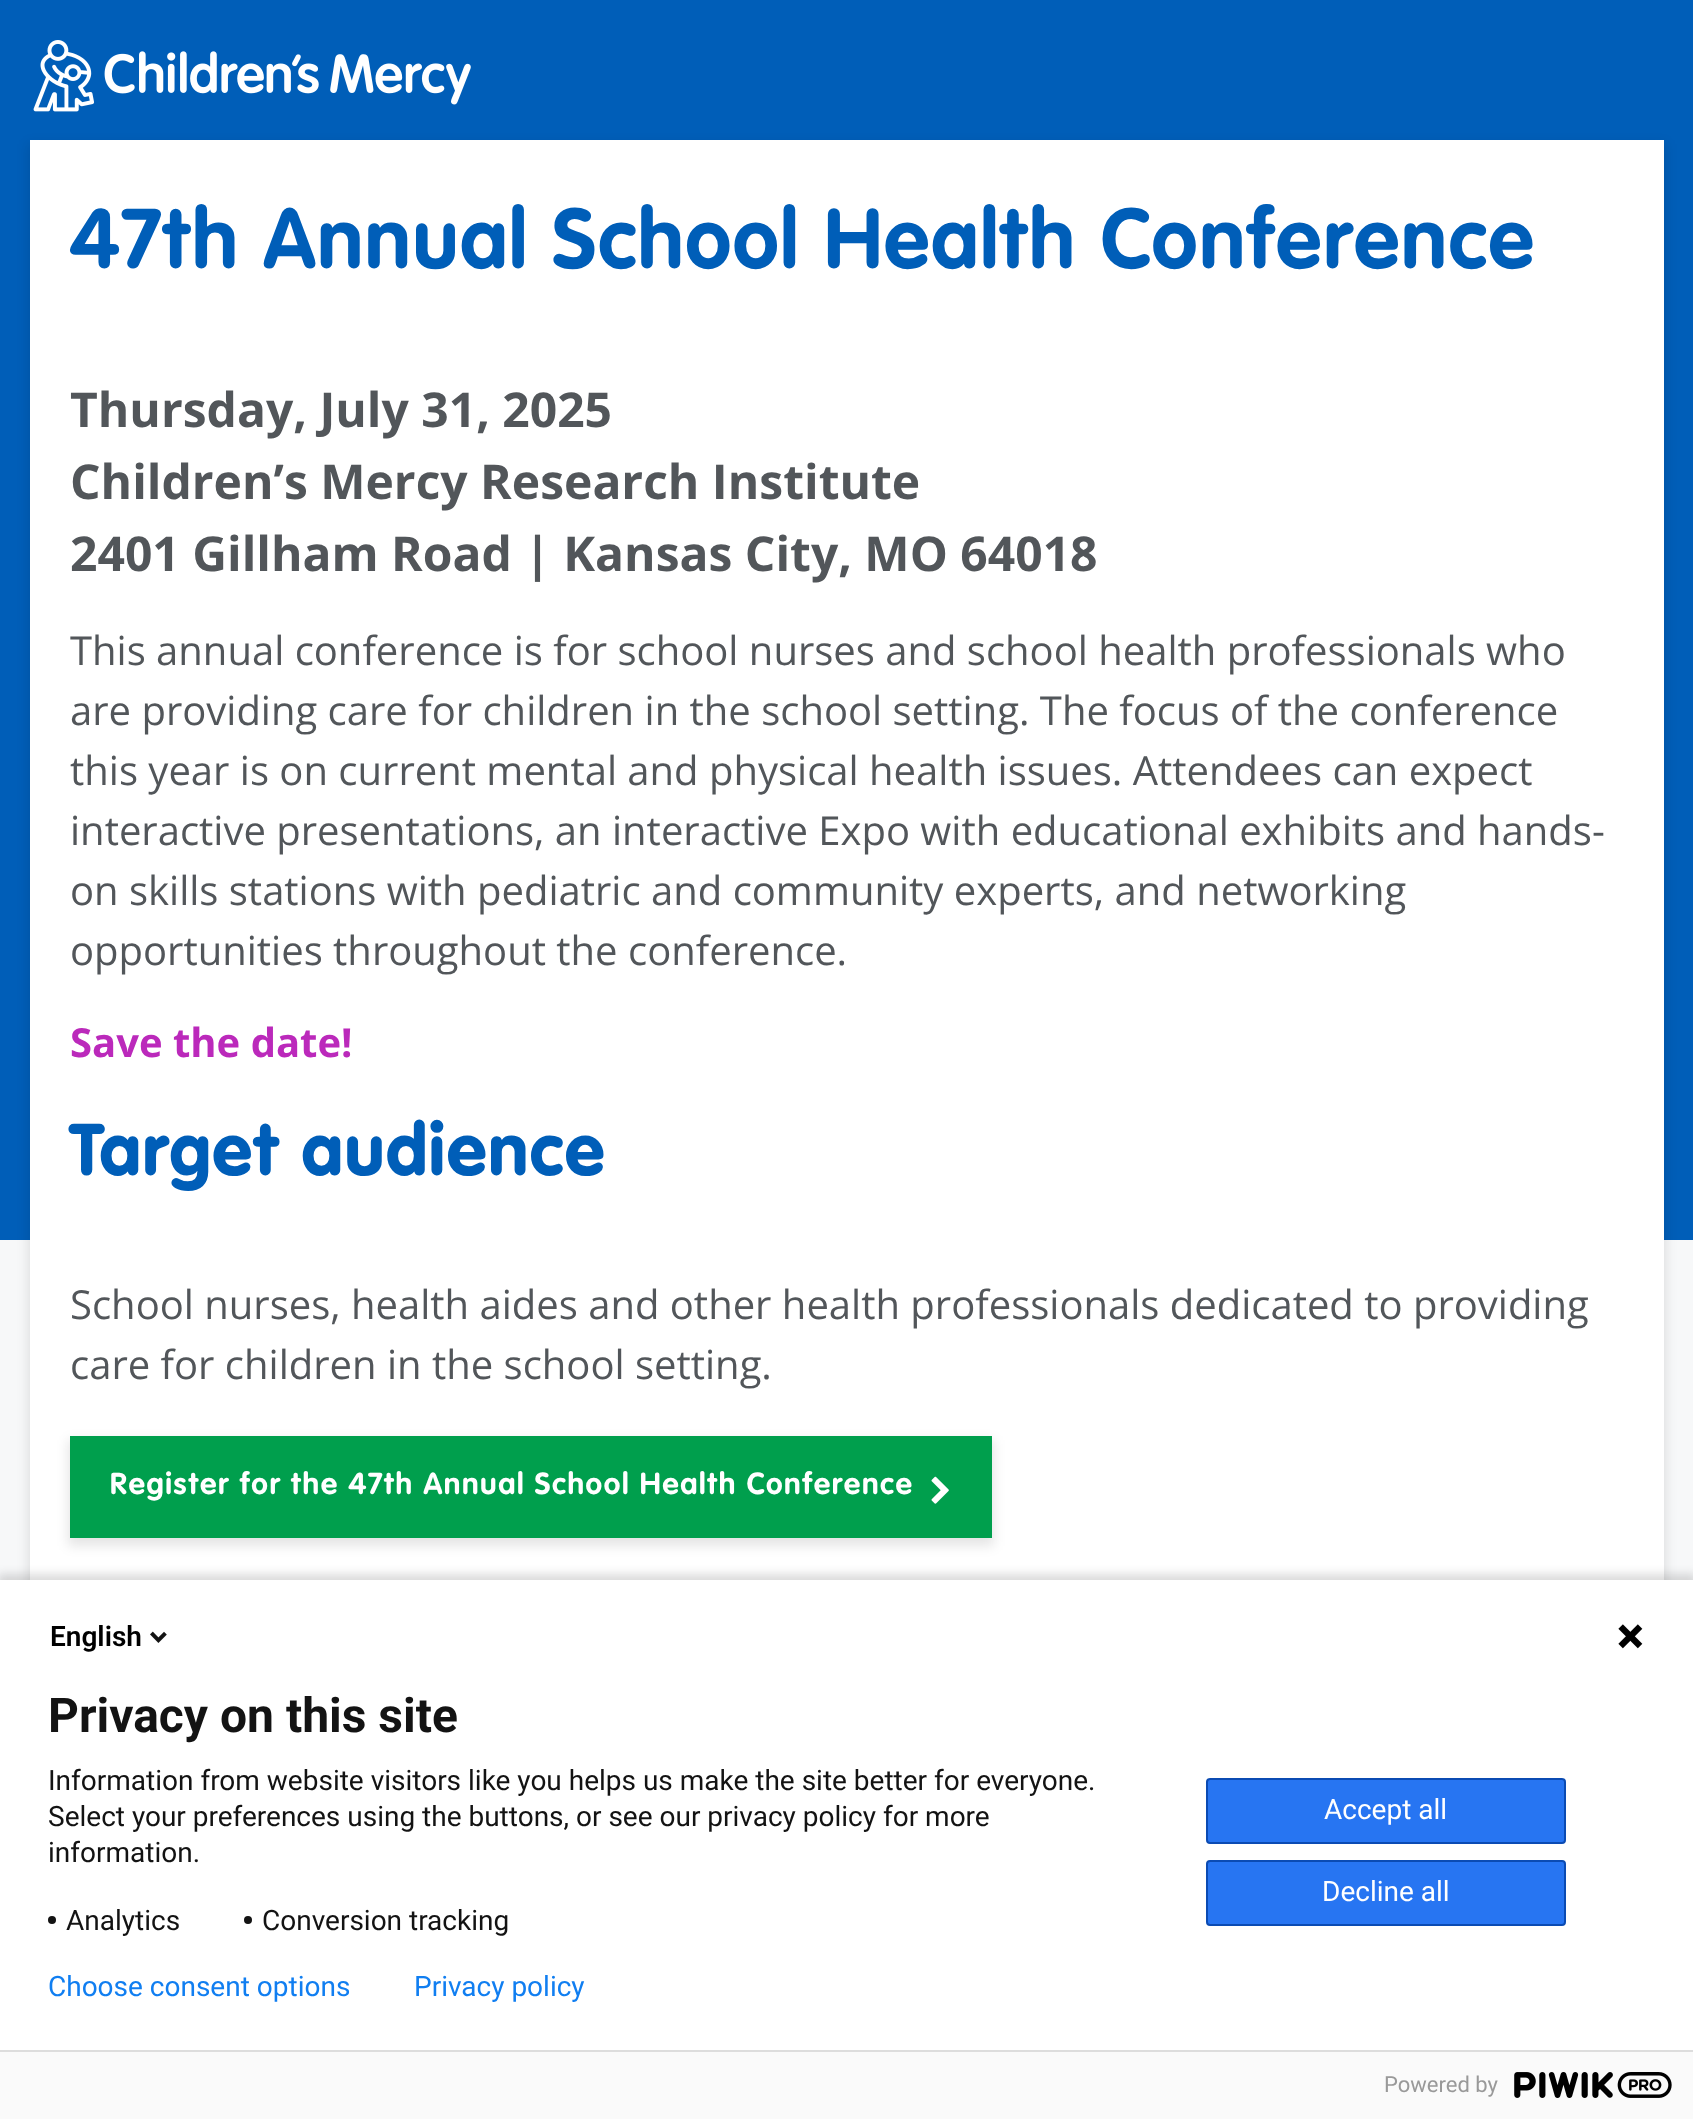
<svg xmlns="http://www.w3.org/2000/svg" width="1693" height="2119">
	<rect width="100%" height="100%" fill="#F7F8F9" />
	<rect x="0" y="0" width="1693" height="1240" fill="#005EB8" />
	<image x="33" y="40" width="438" height="72" href="assets/img1.png" />
	<rect x="28" y="144" width="1638" height="1760" fill="#000000" fill-opacity="0.1" filter="blur(6px)" />
	<rect x="30" y="140" width="1634" height="1440" fill="#FFFFFF" />
	<text x="70" y="268" font-family="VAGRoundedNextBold" font-size="83.25" letter-spacing="1.6" fill="#005EB8">47th Annual School Health Conference</text>
	<g font-family="Open Sans" font-size="48" font-weight="700" fill="#52565A">
		<text x="70" y="427">Thursday, July 31, 2025</text>
		<text x="70" y="499">Children’s Mercy Research Institute</text>
		<text x="70" y="571">2401 Gillham Road | Kansas City, MO 64018</text>
	</g>
	<g font-family="Open Sans" font-size="40" fill="#52565A">
		<text x="70" y="665">This annual conference is for school nurses and school health professionals who</text>
		<text x="70" y="725">are providing care for children in the school setting. The focus of the conference</text>
		<text x="70" y="785">this year is on current mental and physical health issues. Attendees can expect</text>
		<text x="70" y="845">interactive presentations, an interactive Expo with educational exhibits and hands-</text>
		<text x="70" y="905">on skills stations with pediatric and community experts, and networking</text>
		<text x="70" y="965">opportunities throughout the conference.</text>
	</g>
	<text x="70" y="1057" font-family="Open Sans" font-size="40" font-weight="700" fill="#BB29BB">Save the date!</text>
	<text x="70" y="1175" font-family="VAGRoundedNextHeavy" font-size="72" letter-spacing="1.6" fill="#005EB8">Target audience</text>
	<g font-family="Open Sans" font-size="40" fill="#52565A">
		<text x="70" y="1319">School nurses, health aides and other health professionals dedicated to providing</text>
		<text x="70" y="1379">care for children in the school setting.</text>
	</g>
	<rect x="68" y="1440" width="926" height="106" fill="#000000" fill-opacity="0.1" filter="blur(6px)" />
	<rect x="70" y="1436" width="922" height="102" fill="#009F4D" />
	<text x="110" y="1494" font-family="VAGRoundedNextBold" font-size="30" letter-spacing="1.6" fill="#FFFFFF">Register for the 47th Annual School Health Conference</text>
	<image x="931" y="1476" width="18" height="28" href="assets/img2.png" />
	<rect x="-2" y="1574" width="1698" height="544" fill="#000000" fill-opacity="0.14" filter="blur(5px)" />
	<rect x="0" y="1580" width="1693" height="470" fill="#FFFFFF" />
	<text x="50" y="1646" font-family="Roboto" font-size="28" font-weight="600" fill="#000000">English</text>
	<image x="150" y="1631" width="17" height="12" href="assets/img3.png" />
	<image x="1618" y="1624" width="25" height="25" href="assets/img4.png" />
	<text x="48" y="1732" font-family="Roboto" font-size="48" font-weight="700" fill="#131313">Privacy on this site</text>
	<g font-family="Roboto" font-size="28" fill="#131313">
		<text x="48" y="1790">Information from website visitors like you helps us make the site better for everyone.</text>
		<text x="48" y="1826">Select your preferences using the buttons, or see our privacy policy for more</text>
		<text x="48" y="1862">information.</text>
	</g>
	<circle cx="52" cy="1920" r="4" fill="#131313" />
	<text x="66" y="1930" font-family="Roboto" font-size="28" fill="#131313">Analytics</text>
	<circle cx="248" cy="1920" r="4" fill="#131313" />
	<text x="262" y="1930" font-family="Roboto" font-size="28" fill="#131313">Conversion tracking</text>
	<rect x="1207" y="1779" width="358" height="64" rx="3" fill="#2775F2" stroke="#0B4BB3" stroke-width="2" />
	<text x="1324" y="1819" font-family="Roboto" font-size="28" fill="#FFFFFF">Accept all</text>
	<rect x="1207" y="1861" width="358" height="64" rx="3" fill="#2775F2" stroke="#0B4BB3" stroke-width="2" />
	<text x="1322" y="1901" font-family="Roboto" font-size="28" fill="#FFFFFF">Decline all</text>
	<g font-family="Roboto" font-size="28" fill="#107EF1">
		<text x="48" y="1996">Choose consent options</text>
		<text x="414" y="1996">Privacy policy</text>
	</g>
	<rect x="0" y="2052" width="1693" height="67" fill="#FAFAFA" />
	<rect x="0" y="2050" width="1693" height="2" fill="#DDDDDD" />
	<text x="1384" y="2092" font-family="Roboto" font-size="22" fill="#999999">Powered by</text>
	<image x="1514" y="2072" width="158" height="26" href="assets/img5.png" />
</svg>
